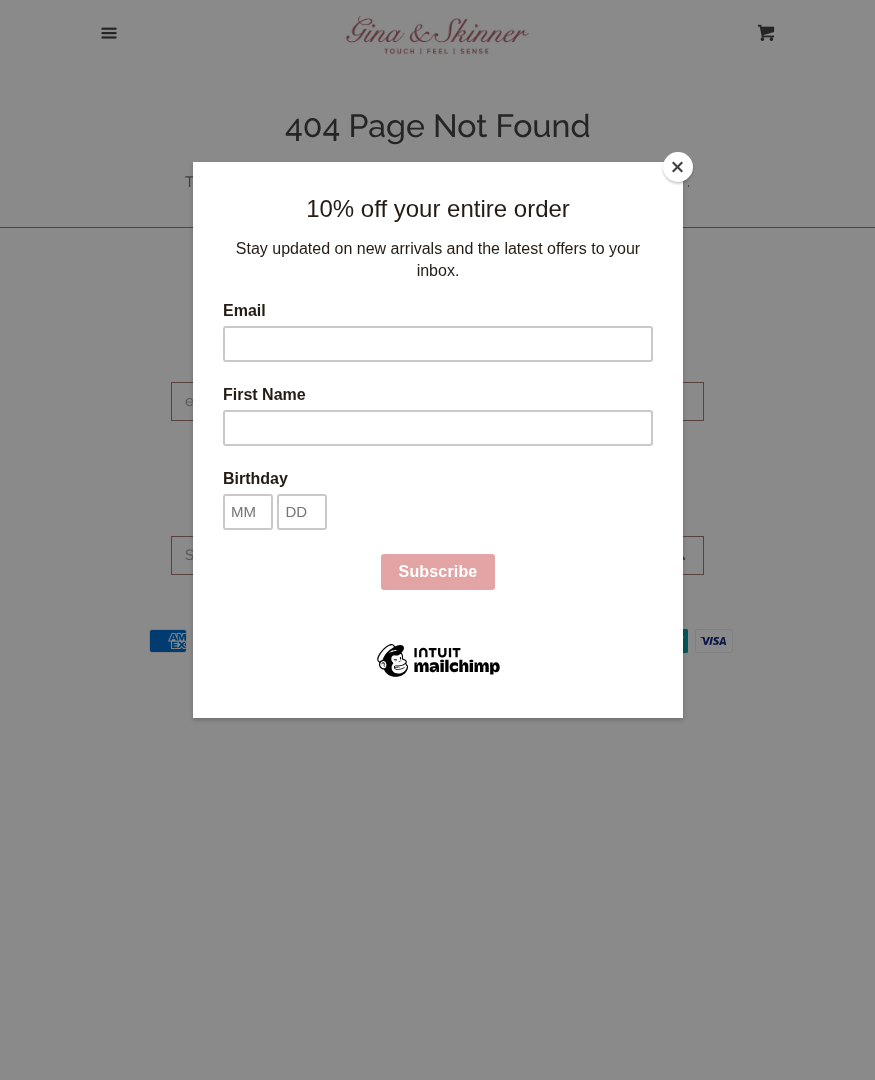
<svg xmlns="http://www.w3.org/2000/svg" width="875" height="1080">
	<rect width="100%" height="100%" fill="#8A8A8A" />
	<image x="101" y="27" width="16" height="12" href="assets/img1.png" />
	<image x="345" y="15" width="184" height="40" href="assets/img2.png" />
	<image x="757" y="24" width="18" height="17" href="assets/img3.png" />
	<text x="285" y="137" font-family="Raleway" font-size="32" font-weight="500" fill="#252525">404 Page Not Found</text>
	<g font-family="Raleway" font-size="15" font-weight="500" fill="#404040">
		<text x="185" y="187">T</text>
		<text x="687" y="187">.</text>
	</g>
	<rect x="0" y="227" width="875" height="1" fill="#57423E" />
	<rect x="171.5" y="382.5" width="532" height="38" fill="none" stroke="#57423E" />
	<text x="185" y="406" font-family="Raleway" font-size="15" font-weight="500" fill="#5D5D5D">e</text>
	<rect x="171.5" y="536.5" width="532" height="38" fill="none" stroke="#57423E" />
	<text x="185" y="560" font-family="Raleway" font-size="15" font-weight="500" fill="#5D5D5D">S</text>
	<image x="683" y="556" width="3" height="5" href="assets/img4.png" />
	<image x="149" y="629" width="38" height="24" href="assets/img5.png" />
	<image x="683" y="629" width="5" height="24" href="assets/img6.png" />
	<image x="695" y="629" width="38" height="24" href="assets/img7.png" />
	<rect x="193" y="164" width="490" height="556" fill="#000000" fill-opacity="0.2" filter="blur(2px)" />
	<image x="193" y="162" width="490" height="556" href="assets/img8.png" />
	<rect x="663" y="154" width="30" height="30" rx="15" fill="#000000" fill-opacity="0.2" filter="blur(1px)" />
	<circle cx="678" cy="167" r="15" fill="#FFFFFF" />
	<path d="M681.5 161.5L683 163L673.5 172.5L672 171Z" fill="#414141" />
	<path d="M672 163L673.5 161.5L683 171L681.5 172.5Z" fill="#414141" />
</svg>
